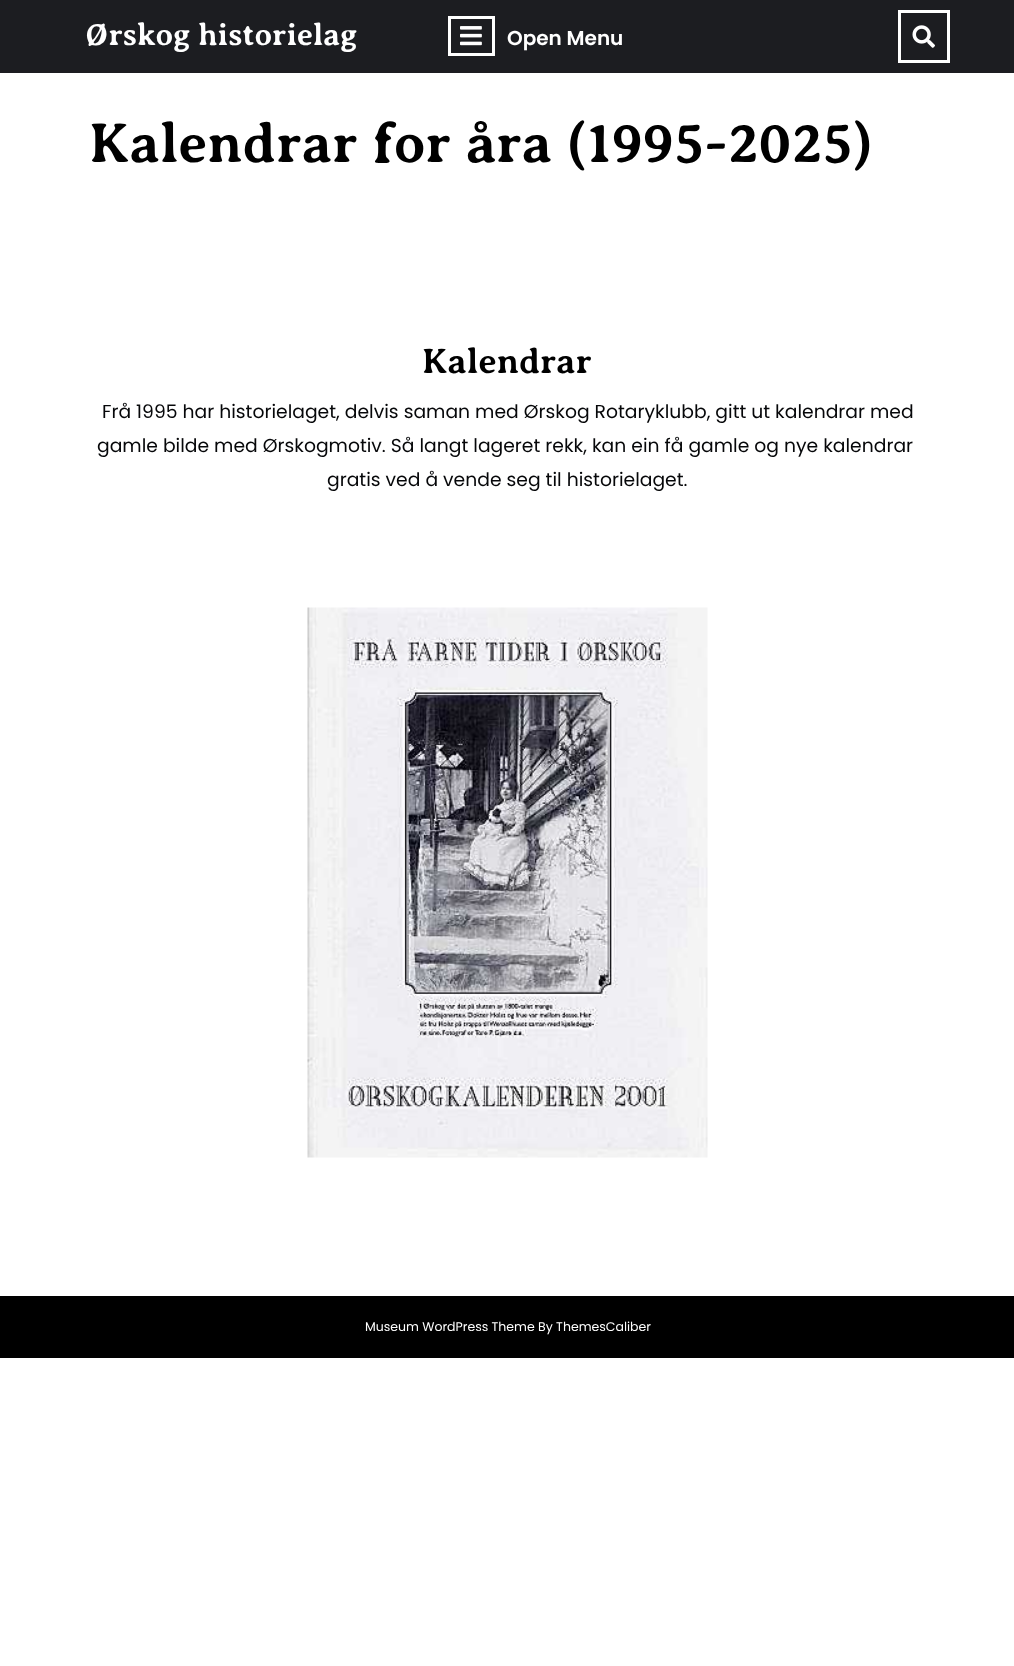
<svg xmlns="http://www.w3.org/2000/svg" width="1014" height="1666">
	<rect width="100%" height="100%" fill="#FFFFFF" />
	<rect x="0" y="0" width="1014" height="73" fill="#1C1D21" />
	<text x="85" y="45" font-family="Averia Serif Libre" font-size="31.25" font-weight="700" fill="#FFFFFF">Ørskog historielag</text>
	<rect x="449.5" y="17.5" width="44" height="37" fill="none" stroke="#FFFFFF" stroke-width="3" />
	<image x="460" y="26" width="22" height="20" href="assets/img1.png" />
	<text x="507" y="45" font-family="Poppins" font-size="20" font-weight="600" fill="#FFFFFF">Open Menu</text>
	<rect x="899.5" y="11.5" width="49" height="50" fill="none" stroke="#FFFFFF" stroke-width="3" />
	<image x="912" y="25" width="23" height="23" href="assets/img2.png" />
	<text x="89" y="162" font-family="Averia Serif Libre" font-size="56.25" font-weight="700" fill="#000000">Kalendrar for åra (1995-2025)</text>
	<text x="422" y="373" font-family="Averia Serif Libre" font-size="35.5" font-weight="700" fill="#000000">Kalendrar</text>
	<g font-family="Poppins" font-size="18.75" fill="#060709">
		<text x="102" y="418">Frå 1995 har historielaget, delvis saman med Ørskog Rotaryklubb, gitt ut kalendrar med</text>
		<text x="97" y="452">gamle bilde med Ørskogmotiv. Så langt lageret rekk, kan ein få gamle og nye kalendrar</text>
		<text x="327" y="486">gratis ved å vende seg til historielaget.</text>
	</g>
	<image x="307" y="607" width="401" height="551" href="assets/img3.png" />
	<rect x="0" y="1296" width="1014" height="62" fill="#000000" />
	<text x="365" y="1331" font-family="Poppins" font-size="12.5" fill="#FFFFFF">Museum WordPress Theme By ThemesCaliber</text>
</svg>
